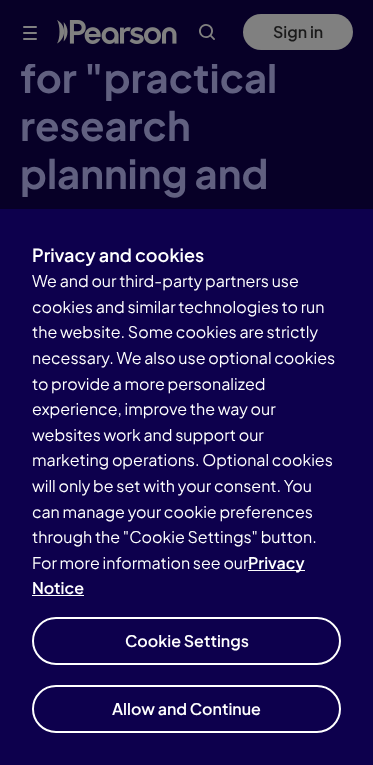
<svg xmlns="http://www.w3.org/2000/svg" width="373" height="765">
	<rect width="100%" height="100%" fill="#070027" />
	<text x="20" y="93" font-family="Plus Jakarta Sans" font-size="40" font-weight="700" fill="#616080">for "practical</text>
	<rect x="28" y="62" width="247" height="2" fill="#070027" />
	<rect x="23" y="32" width="14" height="2" rx="1" fill="#808080" />
	<rect x="23" y="26" width="14" height="2" rx="1" fill="#808080" />
	<rect x="23" y="38" width="14" height="2" rx="1" fill="#808080" />
	<image x="57" y="20" width="120" height="24" href="assets/img1.png" />
	<image x="199" y="24" width="16" height="16" href="assets/img2.png" />
	<rect x="243" y="14" width="110" height="36" rx="18" fill="#808080" />
	<text x="273" y="38" font-family="Plus Jakarta Sans" font-size="16" font-weight="600" fill="#1A1A1A">Sign in</text>
	<g font-family="Plus Jakarta Sans" font-size="40" font-weight="700" fill="#616080">
		<text x="20" y="141">research</text>
		<text x="20" y="189">planning and</text>
	</g>
	<rect x="0" y="209" width="373" height="556" fill="#0D004D" />
	<text x="32" y="262" font-family="Plus Jakarta Sans" font-size="18" font-weight="600" fill="#FFFFFF">Privacy and cookies</text>
	<g font-family="Plus Jakarta Sans" font-size="16" fill="#FFFFFF">
		<text x="32" y="287">We and our third-party partners use</text>
		<text x="32" y="313">cookies and similar technologies to run</text>
		<text x="32" y="338">the website. Some cookies are strictly</text>
		<text x="32" y="364">necessary. We also use optional cookies</text>
		<text x="32" y="390">to provide a more personalized</text>
		<text x="32" y="415">experience, improve the way our</text>
		<text x="32" y="441">websites work and support our</text>
		<text x="32" y="466">marketing operations. Optional cookies</text>
		<text x="32" y="492">will only be set with your consent. You</text>
		<text x="32" y="518">can manage your cookie preferences</text>
		<text x="32" y="543">through the "Cookie Settings" button.</text>
		<text x="32" y="569">For more information see our</text>
	</g>
	<rect x="248" y="570" width="57" height="1" fill="#FEFEFE" />
	<g font-family="Plus Jakarta Sans" font-size="16" font-weight="600" fill="#FFFFFF">
		<text x="248" y="569">Privacy</text>
		<text x="32" y="594">Notice</text>
	</g>
	<rect x="32" y="595" width="52" height="1" fill="#FEFEFE" />
	<rect x="33" y="618" width="307" height="46" rx="23" fill="none" stroke="#FFFFFF" stroke-width="2" />
	<text x="125" y="647" font-family="Plus Jakarta Sans" font-size="16" font-weight="600" fill="#FFFFFF">Cookie Settings</text>
	<rect x="33" y="686" width="307" height="46" rx="23" fill="none" stroke="#FFFFFF" stroke-width="2" />
	<text x="112" y="715" font-family="Plus Jakarta Sans" font-size="16" font-weight="600" fill="#FFFFFF">Allow and Continue</text>
</svg>
